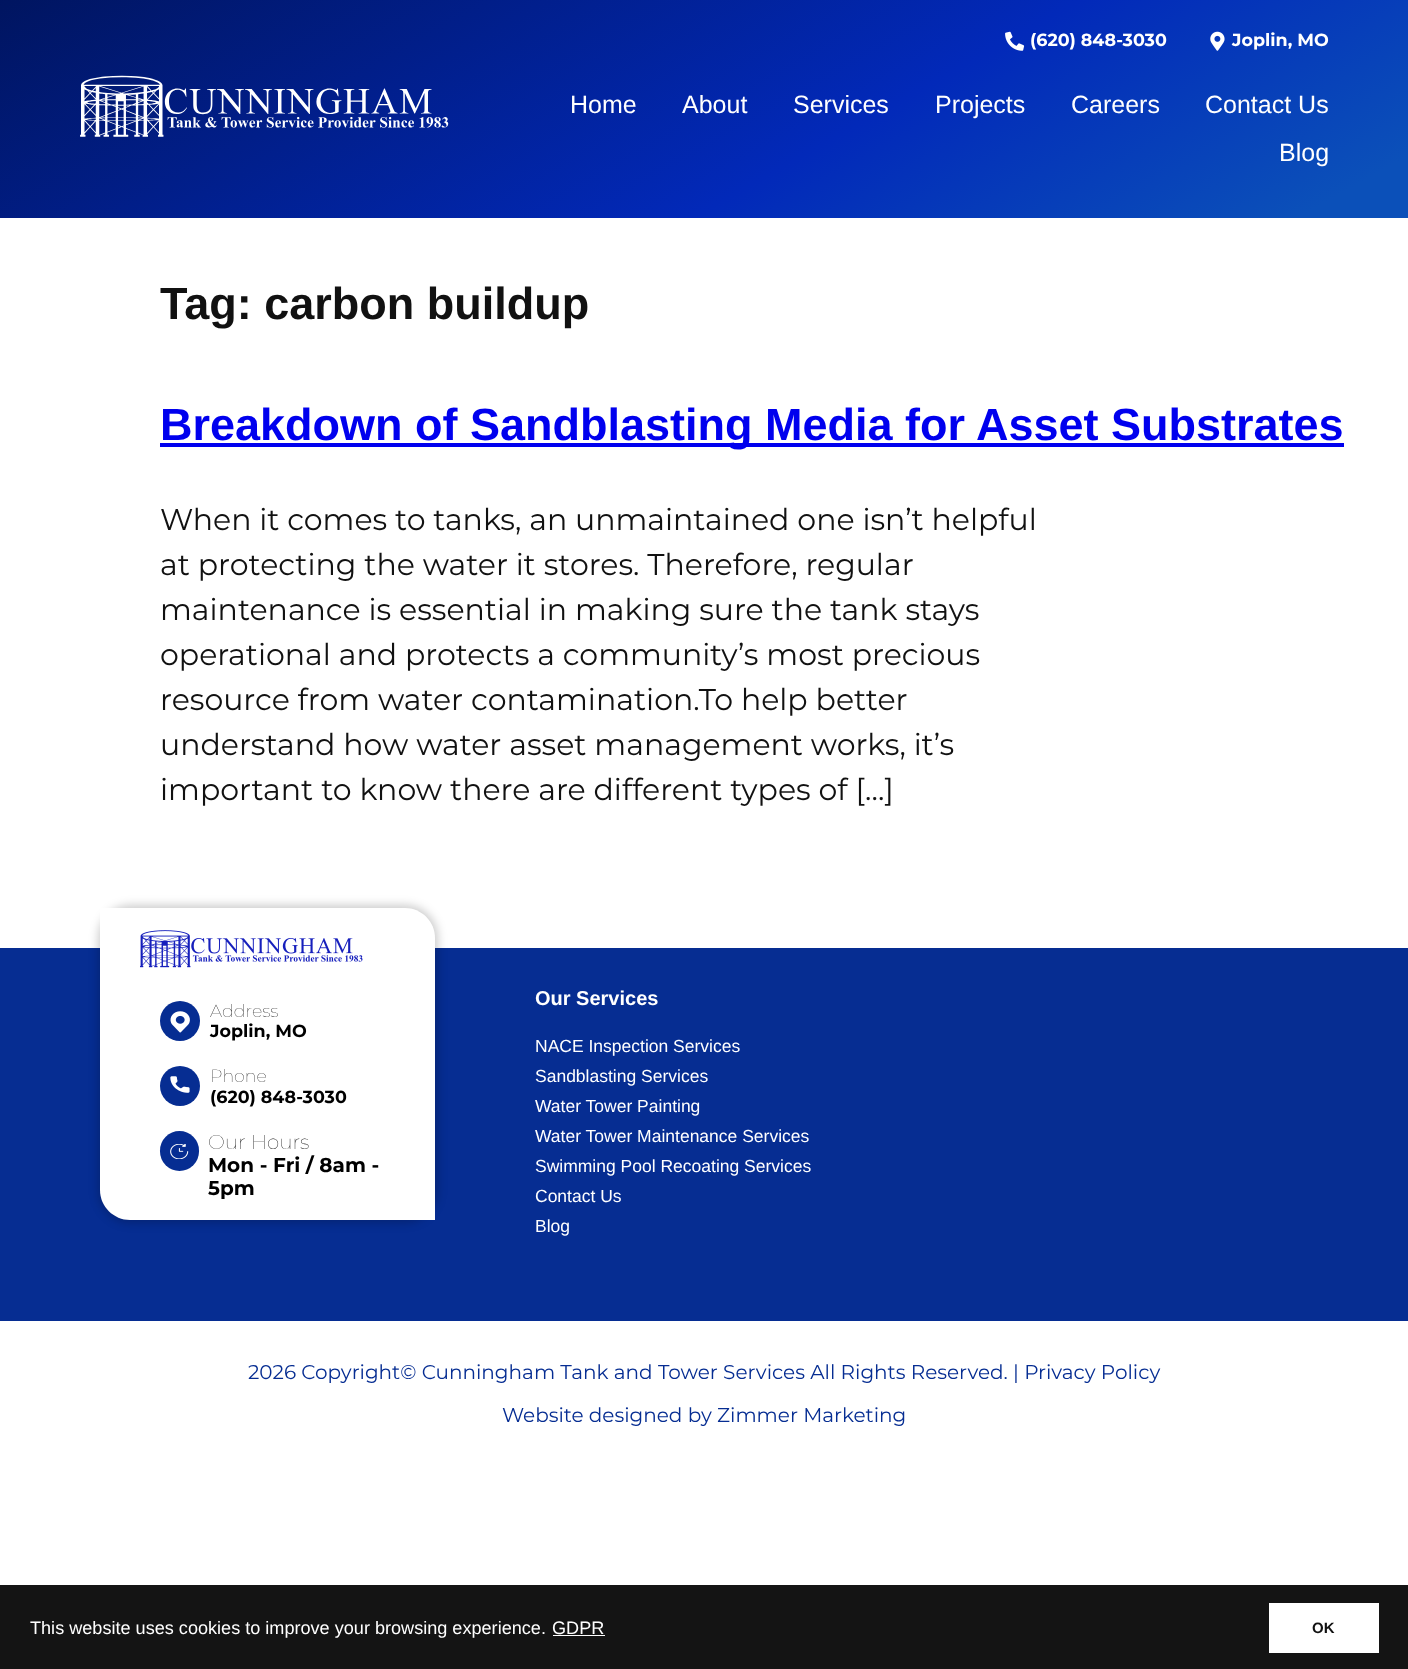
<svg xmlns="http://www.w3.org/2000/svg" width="1408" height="1669">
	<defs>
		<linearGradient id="g1" gradientUnits="userSpaceOnUse" x1="480" y1="-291" x2="920" y2="492"><stop offset="0" stop-color="#00145D" /><stop offset="0.61" stop-color="#0229B9" /><stop offset="0.94" stop-color="#0B50B9" /></linearGradient>
	</defs>
	<rect width="100%" height="100%" fill="#FFFFFF" />
	<rect x="0" y="0" width="1408" height="218" fill="url(#g1)" />
	<image x="80" y="75" width="369" height="62" href="assets/img1.png" />
	<image x="1005" y="31" width="20" height="20" href="assets/img2.png" />
	<text x="1030" y="46" font-family="Montserrat" font-size="17.5" font-weight="700" fill="#FFFFFF">(620) 848-3030</text>
	<image x="1210" y="31" width="15" height="20" href="assets/img3.png" />
	<text x="1232" y="46" font-family="Montserrat" font-size="17.5" font-weight="700" fill="#FFFFFF">Joplin, MO</text>
	<g font-family="Liberation Sans" font-size="25" fill="#FFFFFF">
		<text x="570" y="113">Home</text>
		<text x="682" y="113">About</text>
		<text x="793" y="113">Services</text>
		<text x="935" y="113">Projects</text>
		<text x="1071" y="113">Careers</text>
		<text x="1205" y="113">Contact Us</text>
		<text x="1279" y="161">Blog</text>
	</g>
	<text x="160" y="319" font-family="Liberation Sans" font-size="45" font-weight="700" fill="#111111">Tag: carbon buildup</text>
	<rect x="160" y="443" width="1184" height="4" fill="#0000EE" />
	<text x="160" y="440" font-family="Liberation Sans" font-size="45" font-weight="700" fill="#0000EE">Breakdown of Sandblasting Media for Asset Substrates</text>
	<g font-family="Montserrat" font-size="30" fill="#111111">
		<text x="160" y="530">When it comes to tanks, an unmaintained one isn’t helpful</text>
		<text x="160" y="575">at protecting the water it stores. Therefore, regular</text>
		<text x="160" y="620">maintenance is essential in making sure the tank stays</text>
		<text x="160" y="665">operational and protects a community’s most precious</text>
		<text x="160" y="710">resource from water contamination.To help better</text>
		<text x="160" y="755">understand how water asset management works, it’s</text>
		<text x="160" y="800">important to know there are different types of […]</text>
	</g>
	<rect x="0" y="948" width="1408" height="373" fill="#062D92" />
	<rect x="98" y="905" width="340" height="318" rx="33" fill="#000000" fill-opacity="0.2" filter="blur(5px)" />
	<path d="M100 908H405C421.5 908 435 921.5 435 938V1220H130C113.5 1220 100 1206.5 100 1190Z" fill="#FFFFFF" />
	<image x="140" y="930" width="223" height="38" href="assets/img4.png" />
	<circle cx="180" cy="1021" r="20" fill="#062D92" />
	<image x="170" y="1011" width="20" height="22" href="assets/img5.png" />
	<text x="210" y="1017" font-family="Montserrat" font-size="17.5" font-weight="100" fill="#000000">Address</text>
	<text x="210" y="1037" font-family="Montserrat" font-size="17.5" font-weight="700" fill="#000000">Joplin, MO</text>
	<circle cx="180" cy="1086" r="20" fill="#062D92" />
	<image x="170" y="1076" width="20" height="17" href="assets/img6.png" />
	<text x="210" y="1082" font-family="Montserrat" font-size="17.5" font-weight="100" fill="#000000">Phone</text>
	<text x="210" y="1103" font-family="Montserrat" font-size="17.5" font-weight="700" fill="#000000">(620) 848-3030</text>
	<rect x="160" y="1131" width="39" height="40" rx="19.5" fill="#062D92" />
	<image x="170" y="1144" width="19" height="15" href="assets/img7.png" />
	<text x="208" y="1149" font-family="Montserrat" font-size="20" font-weight="100" fill="#000000">Our Hours</text>
	<g font-family="Montserrat" font-size="20" font-weight="700" fill="#000000">
		<text x="208" y="1172">Mon - Fri / 8am -</text>
		<text x="208" y="1195">5pm</text>
	</g>
	<text x="535" y="1005" font-family="Liberation Sans" font-size="20" font-weight="700" fill="#FFFFFF">Our Services</text>
	<g font-family="Liberation Sans" font-size="17.5" fill="#FFFFFF">
		<text x="535" y="1052">NACE Inspection Services</text>
		<text x="535" y="1082">Sandblasting Services</text>
		<text x="535" y="1112">Water Tower Painting</text>
		<text x="535" y="1142">Water Tower Maintenance Services</text>
		<text x="535" y="1172">Swimming Pool Recoating Services</text>
		<text x="535" y="1202">Contact Us</text>
		<text x="535" y="1232">Blog</text>
	</g>
	<g font-family="Montserrat" font-size="20" fill="#062D92">
		<text x="248" y="1379">2026 Copyright© Cunningham Tank and Tower Services All Rights Reserved. | Privacy Policy</text>
		<text x="502" y="1422">Website designed by Zimmer Marketing</text>
	</g>
	<rect x="0" y="1585" width="1408" height="84" fill="#141414" />
	<g font-family="Liberation Sans" font-size="18.1" fill="#FFFFFF">
		<text x="30" y="1634">This website uses cookies to improve your browsing experience.</text>
		<text x="552" y="1634">GDPR</text>
	</g>
	<rect x="553" y="1635" width="52" height="1" fill="#FFFFFF" />
	<rect x="1269" y="1603" width="110" height="50" fill="#FFFFFF" />
	<text x="1312" y="1633" font-family="Liberation Sans" font-size="15" font-weight="700" fill="#111111">OK</text>
</svg>
